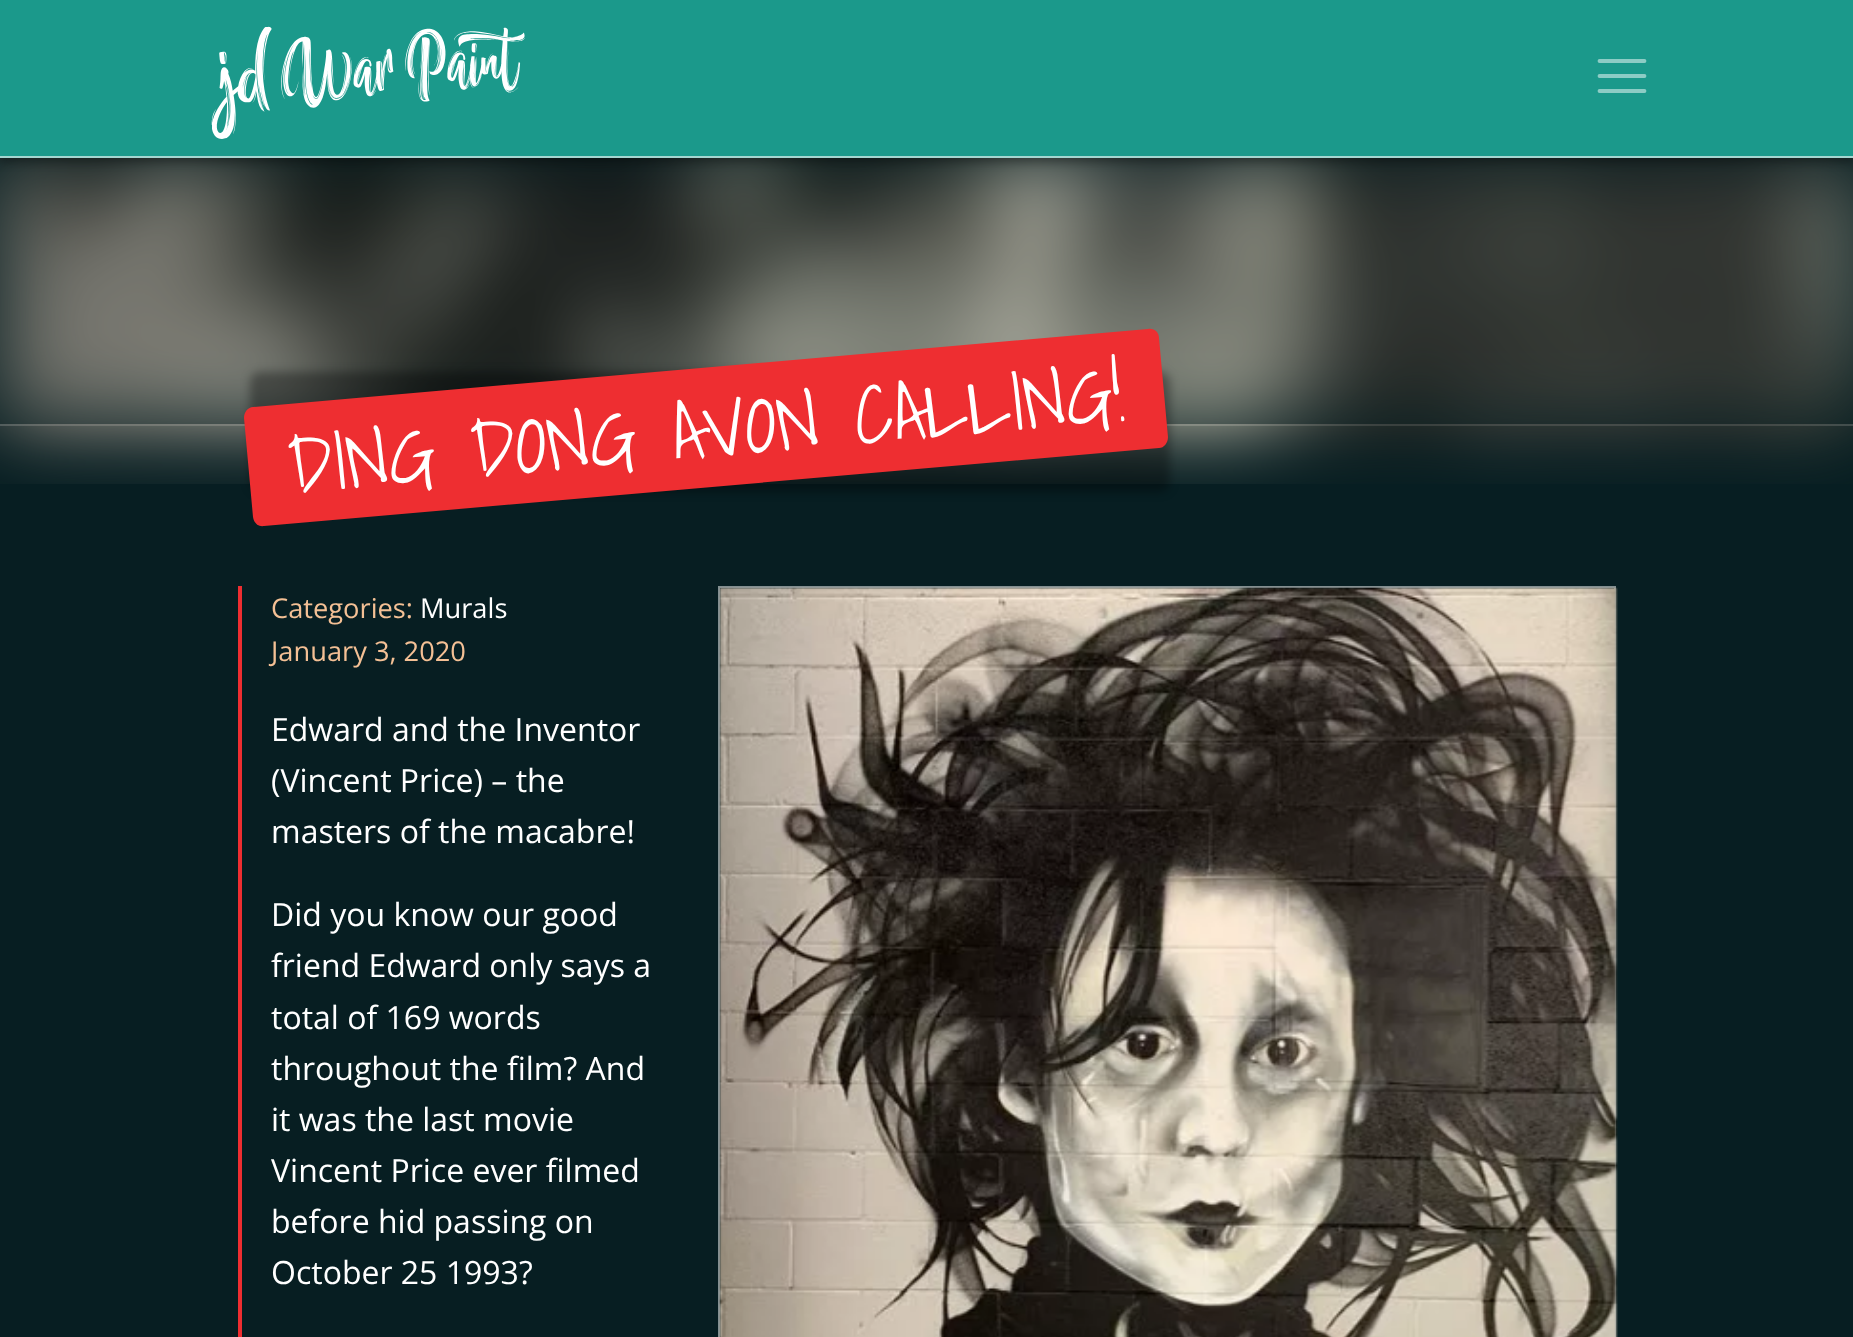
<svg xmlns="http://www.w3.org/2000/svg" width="1853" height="1337">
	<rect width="100%" height="100%" fill="#071E22" />
	<rect x="0" y="424" width="1853" height="2" fill="#394B4E" />
	<image x="0" y="158" width="1853" height="326" href="assets/img2.png" />
	<rect x="0" y="158" width="1853" height="266" fill="#071E22" fill-opacity="0.33" />
	<rect x="0" y="4" width="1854" height="158" fill="#000000" fill-opacity="0.33" filter="blur(5px)" />
	<rect x="0" y="0" width="1853" height="156" fill="#1B998B" />
	<rect x="0" y="156" width="1853" height="2" fill="#A4D6D1" />
	<image x="211" y="26" width="314" height="113" href="assets/img1.png" />
	<path d="M1599.5 61H1644.5M1599.5 76H1644.5M1599.5 91H1644.5" fill="none" stroke="#8DCCC5" stroke-width="3.8" stroke-linecap="round" />
	<rect x="250" y="372" width="920" height="120" rx="10" fill="#000000" fill-opacity="0.33" filter="blur(5px)" />
	<path d="M253 407L1148 329C1154 328 1159 332 1159 338L1168 437C1168 443 1164 448 1159 448L264 526C258 527 254 523 253 517L244 418C244 412 248 407 253 407Z" fill="#EE2E31" />
	<text x="291" y="494" transform="rotate(-5 291 494)" font-family="Shadows Into Light" font-size="80" font-weight="300" fill="#FFFFFF">DING DONG AVON CALLING!</text>
	<rect x="238" y="586" width="4" height="751" fill="#EE2E31" />
	<text x="271" y="618" font-family="Open Sans" font-size="27.25" fill="#F4C095">Categories:</text>
	<text x="420" y="618" font-family="Open Sans" font-size="27.25" fill="#FFFFFF">Murals</text>
	<text x="271" y="661" font-family="Open Sans" font-size="27.25" fill="#F4C095">January 3, 2020</text>
	<g font-family="Open Sans" font-size="32" fill="#FFFFFF">
		<text x="271" y="741">Edward and the Inventor</text>
		<text x="271" y="792">(Vincent Price) – the</text>
		<text x="271" y="843">masters of the macabre!</text>
		<text x="271" y="926">Did you know our good</text>
		<text x="271" y="977">friend Edward only says a</text>
		<text x="271" y="1029">total of 169 words</text>
		<text x="271" y="1080">throughout the film? And</text>
		<text x="271" y="1131">it was the last movie</text>
		<text x="271" y="1182">Vincent Price ever filmed</text>
		<text x="271" y="1233">before hid passing on</text>
		<text x="271" y="1284">October 25 1993?</text>
	</g>
	<rect x="719" y="587" width="896" height="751" fill="none" stroke="#838F91" stroke-width="2" />
	<image x="719" y="587" width="899" height="750" href="assets/img3.png" />
</svg>
